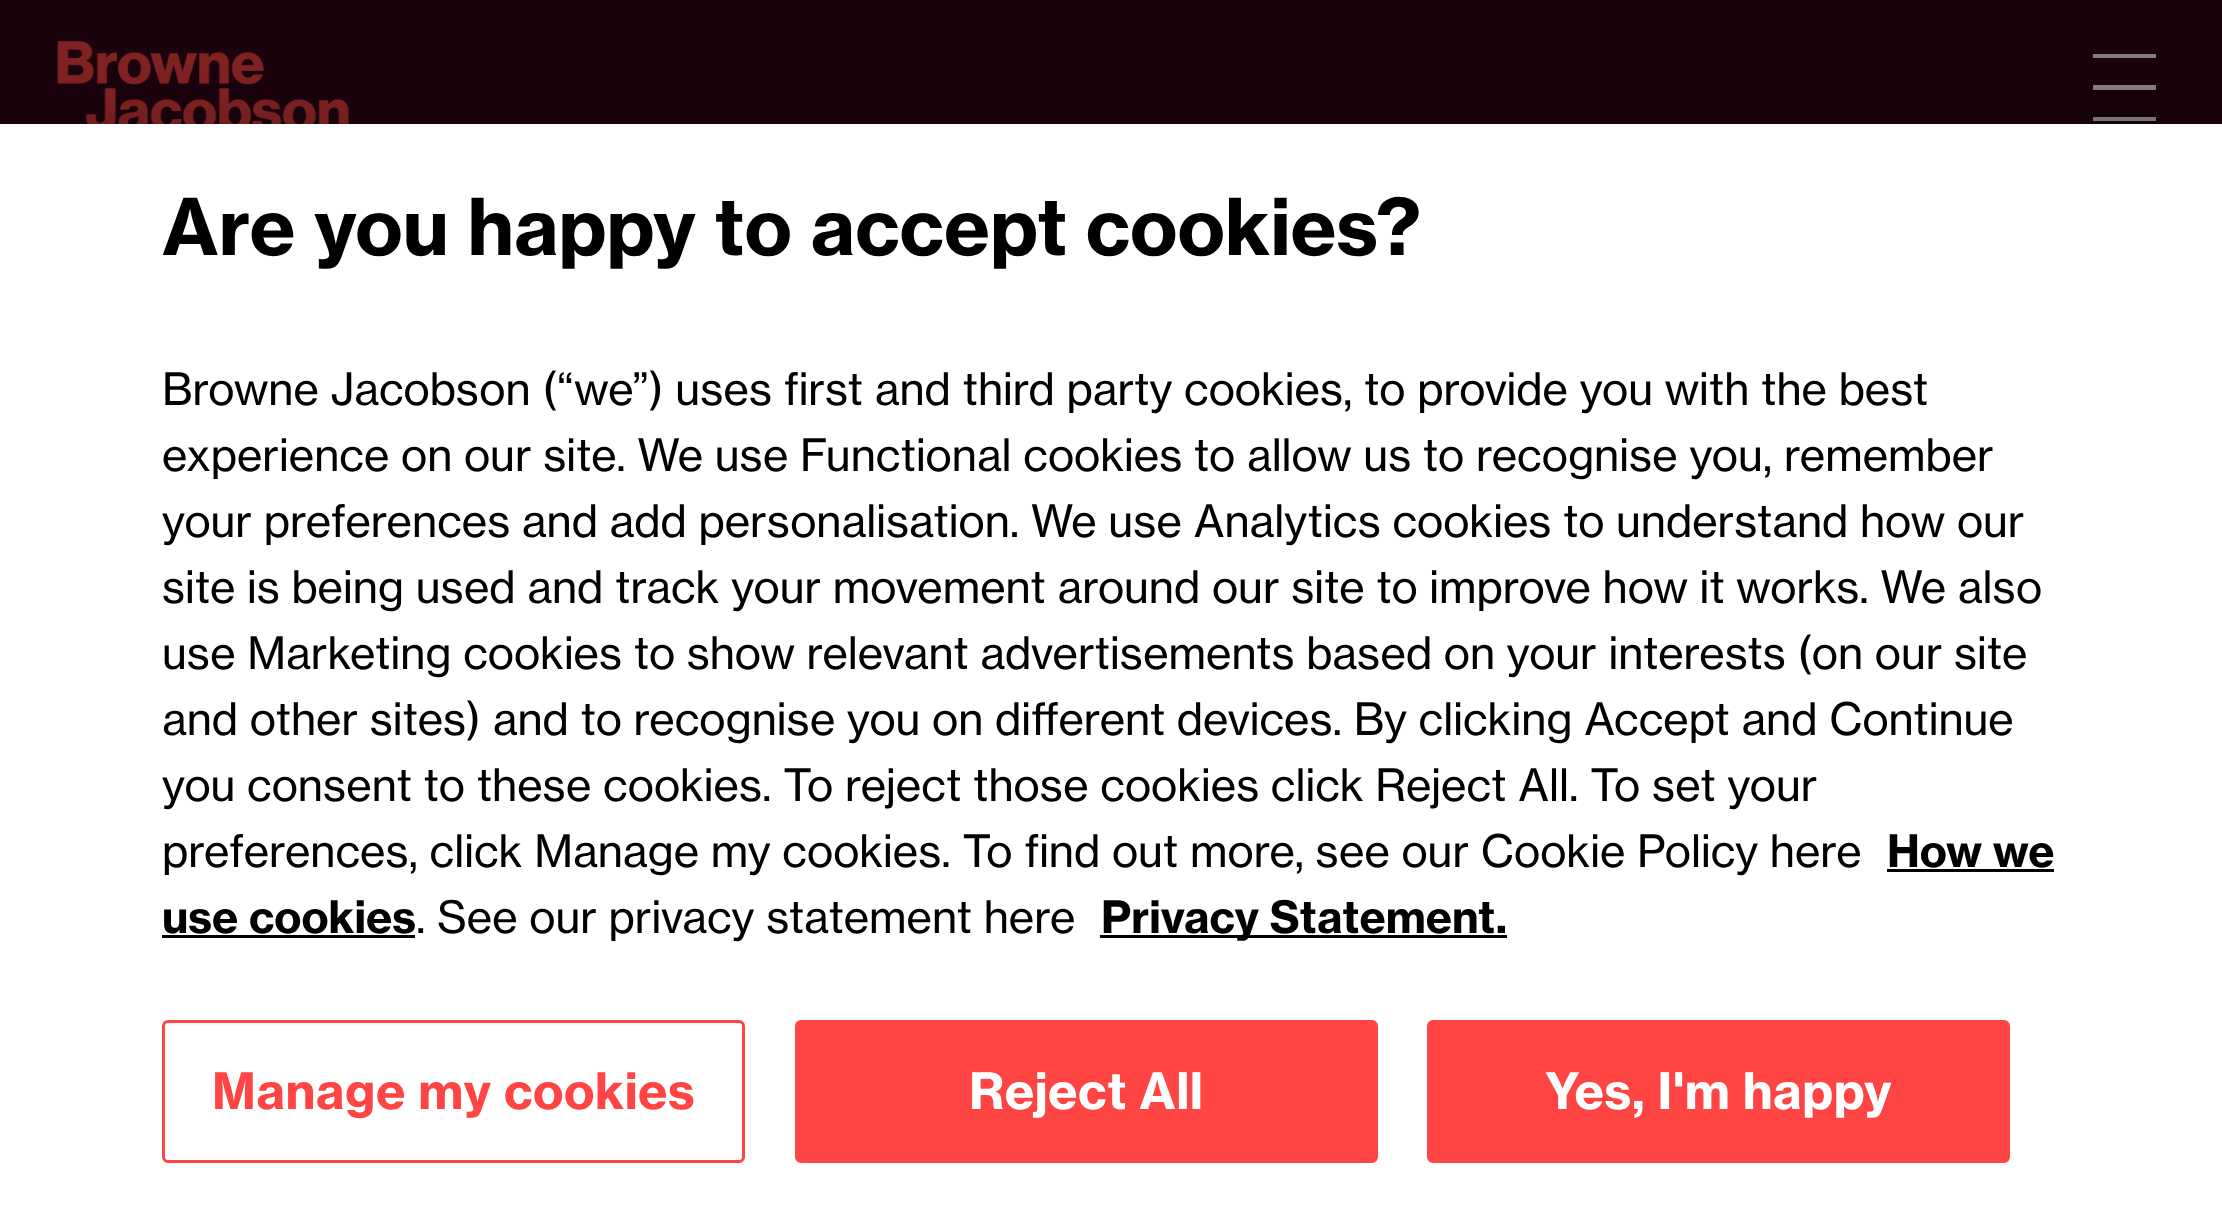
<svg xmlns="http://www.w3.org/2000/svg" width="2222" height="1228">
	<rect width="100%" height="100%" fill="#1A030D" />
	<image x="57" y="41" width="292" height="83" href="assets/img1.png" />
	<path d="M2093 54H2156V58H2093ZM2093 85H2156V90H2093ZM2093 117H2156V121H2093Z" fill="#808080" />
	<rect x="0" y="124" width="2222" height="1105" fill="#000000" fill-opacity="0.2" filter="blur(25px)" />
	<rect x="0" y="124" width="2222" height="1104" fill="#FFFFFF" />
	<text x="162" y="255" font-family="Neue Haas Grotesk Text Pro" font-size="77" font-weight="700" fill="#000000">Are you happy to accept cookies?</text>
	<g font-family="Neue Haas Grotesk Text Pro" font-size="44" fill="#000000">
		<text x="162" y="405">Browne Jacobson (“we”) uses first and third party cookies, to provide you with the best</text>
		<text x="162" y="471">experience on our site. We use Functional cookies to allow us to recognise you, remember</text>
		<text x="162" y="537">your preferences and add personalisation. We use Analytics cookies to understand how our</text>
		<text x="162" y="603">site is being used and track your movement around our site to improve how it works. We also</text>
		<text x="162" y="669">use Marketing cookies to show relevant advertisements based on your interests (on our site</text>
		<text x="162" y="735">and other sites) and to recognise you on different devices. By clicking Accept and Continue</text>
		<text x="162" y="801">you consent to these cookies. To reject those cookies click Reject All. To set your</text>
		<text x="162" y="867">preferences, click Manage my cookies. To find out more, see our Cookie Policy here</text>
	</g>
	<text x="1887" y="867" font-family="Neue Haas Grotesk Text Pro" font-size="44" font-weight="700" fill="#000000">How we</text>
	<rect x="1887" y="869" width="167" height="3" fill="#000000" />
	<text x="162" y="933" font-family="Neue Haas Grotesk Text Pro" font-size="44" font-weight="700" fill="#000000">use cookies</text>
	<rect x="162" y="935" width="253" height="3" fill="#000000" />
	<text x="416" y="933" font-family="Neue Haas Grotesk Text Pro" font-size="44" fill="#000000">. See our privacy statement here</text>
	<rect x="1100" y="935" width="407" height="3" fill="#000000" />
	<text x="1101" y="933" font-family="Neue Haas Grotesk Text Pro" font-size="44" font-weight="700" fill="#000000">Privacy Statement.</text>
	<rect x="163.5" y="1021.5" width="580" height="140" rx="4.5" fill="none" stroke="#FF4543" stroke-width="3" />
	<text x="212" y="1109" font-family="Neue Haas Grotesk Text Pro" font-size="49.5" font-weight="700" letter-spacing="0.5" fill="#FF4543">Manage my cookies</text>
	<rect x="796.5" y="1021.5" width="580" height="140" rx="4.5" fill="#FF4543" stroke="#FF4543" stroke-width="3" />
	<text x="969" y="1109" font-family="Neue Haas Grotesk Text Pro" font-size="49.5" font-weight="700" letter-spacing="0.5" fill="#FFFFFF">Reject All</text>
	<rect x="1428.5" y="1021.5" width="580" height="140" rx="4.5" fill="#FF4543" stroke="#FF4543" stroke-width="3" />
	<text x="1545" y="1109" font-family="Neue Haas Grotesk Text Pro" font-size="49.5" font-weight="700" letter-spacing="0.5" fill="#FFFFFF">Yes, I'm happy</text>
</svg>
